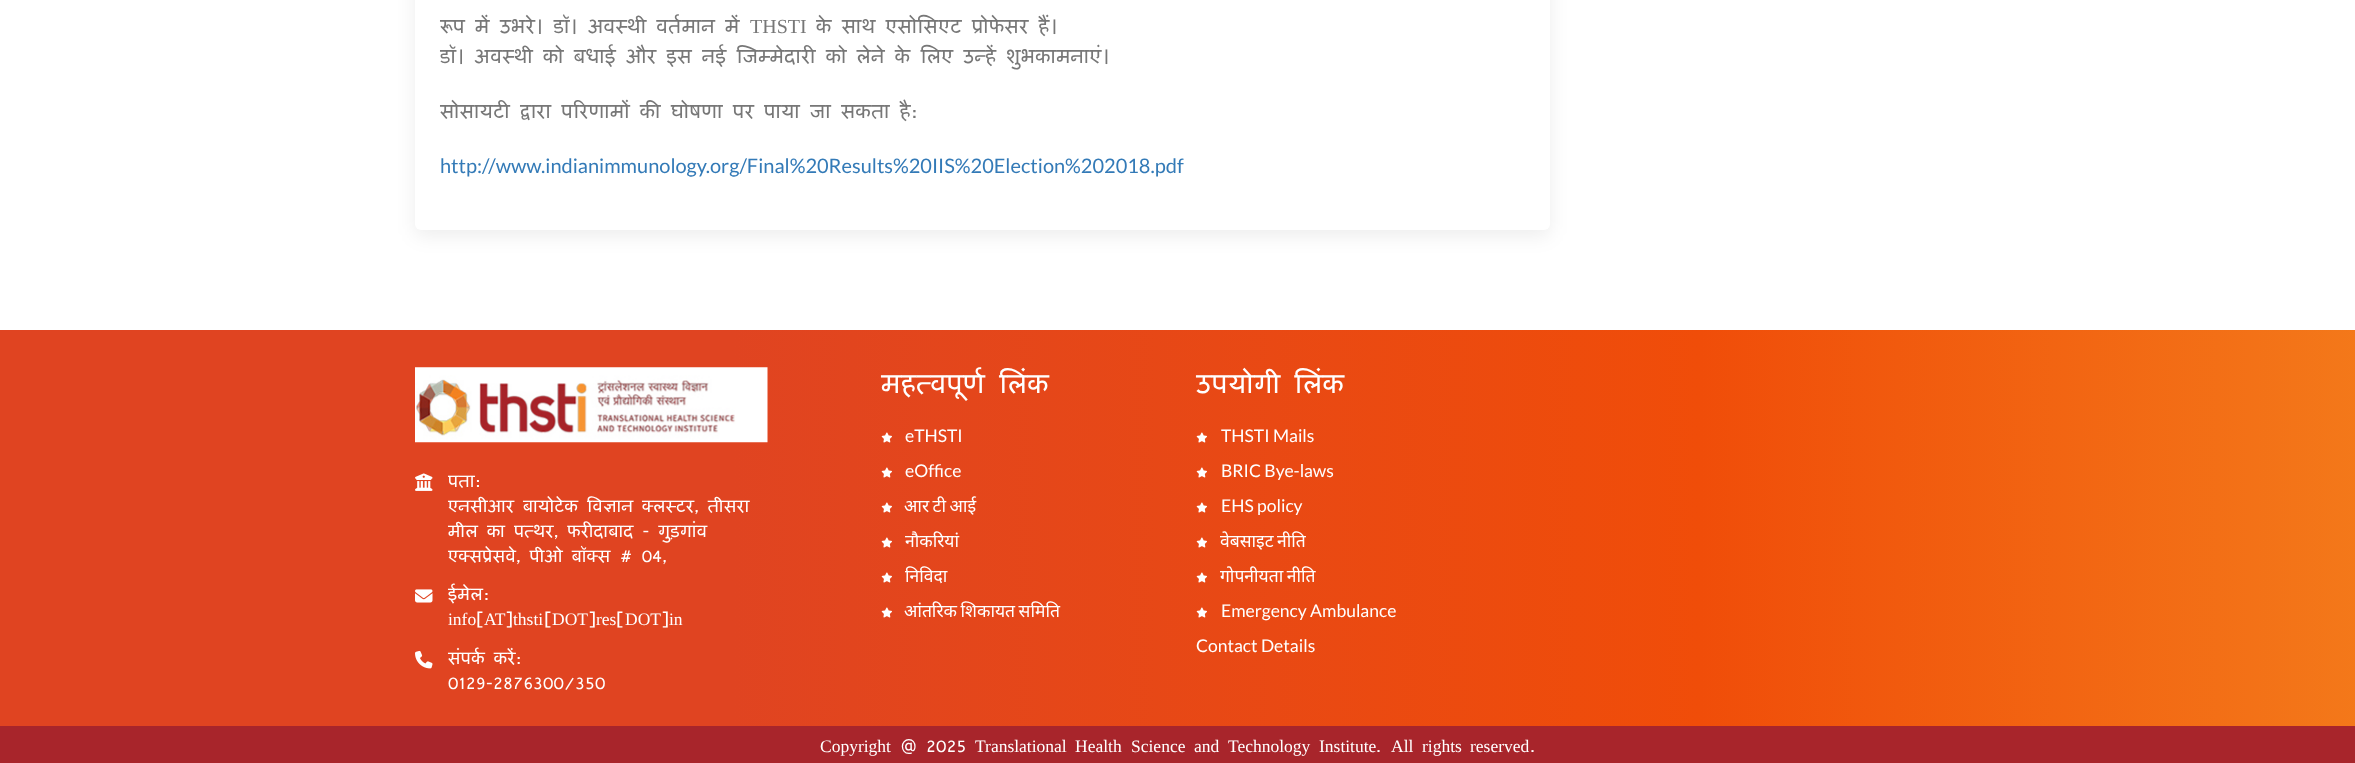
<svg xmlns="http://www.w3.org/2000/svg" width="2355" height="763">
	<defs>
		<linearGradient id="g1" gradientUnits="userSpaceOnUse" x1="0" y1="528" x2="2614" y2="528"><stop offset="0.28" stop-color="#E04421" /><stop offset="0.65" stop-color="#F04D09" /><stop offset="1" stop-color="#F58920" /></linearGradient>
	</defs>
	<rect width="100%" height="100%" fill="#FFFFFF" />
	<rect x="415" y="-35" width="1135" height="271" rx="6" fill="#000000" fill-opacity="0.07" filter="blur(9.5px)" />
	<rect x="415" y="-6" width="1135" height="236" rx="6" fill="#FFFFFF" />
	<text x="440" y="33" font-family="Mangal" font-size="20" fill="#777777">रूप में उभरे। डॉ। अवस्थी वर्तमान में</text>
	<text x="750" y="33" font-family="Liberation Serif" font-size="20" fill="#777777">THSTI</text>
	<g font-family="Mangal" font-size="20" fill="#777777">
		<text x="816" y="33">के साथ एसोसिएट प्रोफेसर हैं।</text>
		<text x="440" y="63">डॉ। अवस्थी को बधाई और इस नई जिम्मेदारी को लेने के लिए उन्हें शुभकामनाएं।</text>
		<text x="440" y="118">सोसायटी द्वारा परिणामों की घोषणा पर पाया जा सकता है:</text>
	</g>
	<text x="440" y="173" font-family="Lato" font-size="20" fill="#337AB7">http://www.indianimmunology.org/Final%20Results%20IIS%20Election%202018.pdf</text>
	<rect x="0" y="330" width="2355" height="396" fill="url(#g1)" />
	<image x="415" y="367" width="353" height="76" href="assets/img1.png" />
	<image x="415" y="473" width="18" height="18" href="assets/img2.png" />
	<g font-family="Mangal" font-size="17.5" fill="#FFFFFF">
		<text x="448" y="487">पता:</text>
		<text x="448" y="512">एनसीआर बायोटेक विज्ञान क्लस्टर, तीसरा</text>
		<text x="448" y="537">मील का पत्थर, फरीदाबाद - गुड़गांव</text>
		<text x="448" y="562">एक्सप्रेसवे, पीओ बॉक्स # 04,</text>
	</g>
	<image x="415" y="589" width="18" height="14" href="assets/img3.png" />
	<text x="448" y="600" font-family="Mangal" font-size="17.5" fill="#FFFFFF">ईमेल:</text>
	<text x="448" y="625" font-family="Liberation Serif" font-size="17.5" fill="#FFFFFF">info</text>
	<text x="476" y="625" font-family="Mangal" font-size="17.5" fill="#FFFFFF">[</text>
	<text x="484" y="625" font-family="Liberation Serif" font-size="17.5" fill="#FFFFFF">AT</text>
	<text x="505" y="625" font-family="Mangal" font-size="17.5" fill="#FFFFFF">]</text>
	<text x="513" y="625" font-family="Liberation Serif" font-size="17.5" fill="#FFFFFF">thsti</text>
	<text x="544" y="625" font-family="Mangal" font-size="17.5" fill="#FFFFFF">[</text>
	<text x="552" y="625" font-family="Liberation Serif" font-size="17.5" fill="#FFFFFF">DOT</text>
	<text x="588" y="625" font-family="Mangal" font-size="17.5" fill="#FFFFFF">]</text>
	<text x="596" y="625" font-family="Liberation Serif" font-size="17.5" fill="#FFFFFF">res</text>
	<text x="616" y="625" font-family="Mangal" font-size="17.5" fill="#FFFFFF">[</text>
	<text x="625" y="625" font-family="Liberation Serif" font-size="17.5" fill="#FFFFFF">DOT</text>
	<text x="661" y="625" font-family="Mangal" font-size="17.5" fill="#FFFFFF">]</text>
	<text x="669" y="625" font-family="Liberation Serif" font-size="17.5" fill="#FFFFFF">in</text>
	<image x="415" y="650" width="18" height="19" href="assets/img4.png" />
	<g font-family="Mangal" font-size="17.5" fill="#FFFFFF">
		<text x="448" y="664">संपर्क करें:</text>
		<text x="448" y="689">0129-2876300/350</text>
	</g>
	<text x="881" y="393" font-family="Mangal" font-size="27.5" fill="#FFFFFF">महत्वपूर्ण लिंक</text>
	<image x="881" y="432" width="11" height="11" href="assets/img5.png" />
	<text x="905" y="442" font-family="Lato" font-size="17.5" fill="#FFFFFF">eTHSTI</text>
	<image x="881" y="467" width="11" height="11" href="assets/img5.png" />
	<text x="905" y="477" font-family="Lato" font-size="17.5" fill="#FFFFFF">eOffice</text>
	<image x="881" y="502" width="11" height="11" href="assets/img5.png" />
	<text x="904" y="512" word-spacing="-1" font-family="Noto Sans" font-size="17.5" fill="#FFFFFF">आर टी आई</text>
	<image x="881" y="537" width="11" height="11" href="assets/img5.png" />
	<text x="905" y="547" font-family="Noto Sans" font-size="17.5" fill="#FFFFFF">नौकरियां</text>
	<image x="881" y="572" width="11" height="11" href="assets/img5.png" />
	<text x="905" y="582" font-family="Noto Sans" font-size="17.5" fill="#FFFFFF">निविदा</text>
	<image x="881" y="607" width="11" height="11" href="assets/img5.png" />
	<text x="904" y="617" word-spacing="-1" font-family="Noto Sans" font-size="17.5" fill="#FFFFFF">आंतरिक शिकायत समिति</text>
	<text x="1196" y="393" font-family="Mangal" font-size="27.5" fill="#FFFFFF">उपयोगी लिंक</text>
	<image x="1196" y="432" width="11" height="11" href="assets/img6.png" />
	<text x="1221" y="442" font-family="Lato" font-size="17.5" fill="#FFFFFF">THSTI Mails</text>
	<image x="1196" y="467" width="11" height="11" href="assets/img6.png" />
	<text x="1221" y="477" font-family="Lato" font-size="17.5" fill="#FFFFFF">BRIC Bye-laws</text>
	<image x="1196" y="502" width="11" height="11" href="assets/img6.png" />
	<text x="1221" y="512" font-family="Lato" font-size="17.5" fill="#FFFFFF">EHS policy</text>
	<image x="1196" y="537" width="11" height="11" href="assets/img6.png" />
	<text x="1220" y="547" word-spacing="-1" font-family="Noto Sans" font-size="17.5" fill="#FFFFFF">वेबसाइट नीति</text>
	<image x="1196" y="572" width="11" height="11" href="assets/img6.png" />
	<text x="1220" y="582" word-spacing="-1" font-family="Noto Sans" font-size="17.5" fill="#FFFFFF">गोपनीयता नीति</text>
	<image x="1196" y="607" width="11" height="11" href="assets/img6.png" />
	<g font-family="Lato" font-size="17.5" fill="#FFFFFF">
		<text x="1221" y="617">Emergency Ambulance</text>
		<text x="1196" y="652">Contact Details</text>
	</g>
	<rect x="0" y="726" width="2355" height="37" fill="#A8252B" />
	<text x="820" y="752" font-family="Liberation Serif" font-size="17.5" fill="#FFFFFF">Copyright</text>
	<text x="900" y="752" font-family="Mangal" font-size="17.5" fill="#FFFFFF">@ 2025</text>
	<g font-family="Liberation Serif" font-size="17.5" fill="#FFFFFF">
		<text x="975" y="752">Translational</text>
		<text x="1075" y="752">Health</text>
		<text x="1131" y="752">Science</text>
		<text x="1194" y="752">and</text>
		<text x="1228" y="752">Technology</text>
		<text x="1319" y="752">Institute</text>
	</g>
	<text x="1376" y="752" font-family="Mangal" font-size="17.5" fill="#FFFFFF">.</text>
	<g font-family="Liberation Serif" font-size="17.5" fill="#FFFFFF">
		<text x="1391" y="752">All</text>
		<text x="1422" y="752">rights</text>
		<text x="1470" y="752">reserved</text>
	</g>
	<text x="1530" y="752" font-family="Mangal" font-size="17.5" fill="#FFFFFF">.</text>
</svg>
